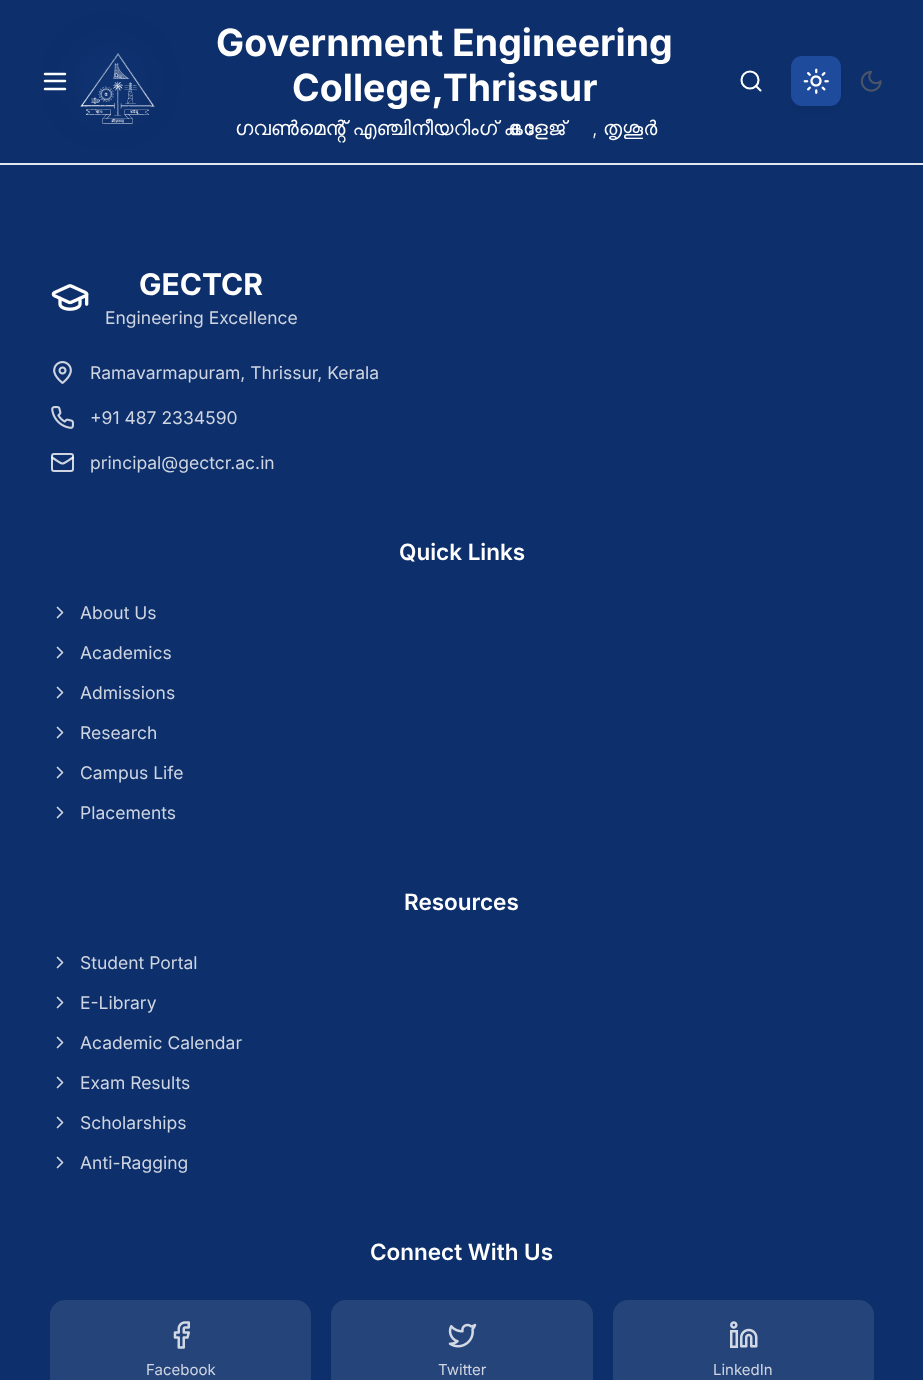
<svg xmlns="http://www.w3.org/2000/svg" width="923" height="1380">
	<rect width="100%" height="100%" fill="#0D2F6B" />
	<path d="M45 81H65M45 74H65M45 89H65" fill="none" stroke="#FFFFFF" stroke-width="2.5" stroke-linecap="round" stroke-linejoin="round" />
	<image x="80" y="53" width="75" height="71" href="assets/img1.png" />
	<rect x="0" y="163" width="923" height="2" fill="#E2E8F0" />
	<rect x="80" y="51" width="60" height="60" rx="30" fill="#1E4B9C" fill-opacity="0.2" filter="blur(20px)" />
	<g font-family="Inter" font-size="37.5" font-weight="700" fill="#FFFFFF">
		<text x="216" y="56">Government Engineering</text>
		<text x="292" y="101">College,Thrissur</text>
	</g>
	<text x="235" y="135" word-spacing="-1" font-family="FreeSans" font-size="20" fill="#FFFFFF">ഗവൺമെൻ്റ് എഞ്ചിനീയറിംഗ് കോളേജ്</text>
	<text x="592" y="135" font-family="Inter" font-size="20" font-weight="300" fill="#FFFFFF">,</text>
	<text x="603" y="135" font-family="FreeSans" font-size="20" fill="#FFFFFF">തൃശൂർ</text>
	<circle cx="750" cy="80" r="8.5" fill="none" stroke="#FFFFFF" stroke-width="2.1" />
	<path d="M760.5 90.5L756 86" fill="none" stroke="#FFFFFF" stroke-width="2.1" stroke-linecap="round" stroke-linejoin="round" />
	<rect x="798" y="68" width="37" height="38" rx="5" fill="#000000" fill-opacity="0.1" filter="blur(4px)" />
	<rect x="791" y="56" width="50" height="50" rx="11" fill="#1E4B9C" />
	<image x="803" y="68" width="26" height="26" href="assets/img2.png" />
	<image x="860" y="70" width="22" height="22" href="assets/img3.png" />
	<image x="51" y="284" width="38" height="27" href="assets/img4.png" />
	<text x="139" y="295" font-family="Inter" font-size="30" font-weight="700" fill="#FFFFFF">GECTCR</text>
	<text x="105" y="324" font-family="Inter" font-size="17.5" fill="#CFD5E1">Engineering Excellence</text>
	<image x="53" y="361" width="19" height="23" href="assets/img5.png" />
	<text x="90" y="379" font-family="Inter" font-size="17.5" fill="#CFD5E1">Ramavarmapuram, Thrissur, Kerala</text>
	<image x="51" y="406" width="23" height="23" href="assets/img6.png" />
	<text x="90" y="424" font-family="Inter" font-size="17.5" fill="#CFD5E1">+91 487 2334590</text>
	<rect x="52" y="454" width="21" height="17" rx="2" fill="none" stroke="#CFD5E1" stroke-width="2" />
	<path d="M73 457.5C60 465.5 65 465.5 52 457.5" fill="none" stroke="#FFFFFF" stroke-opacity="0.8" stroke-width="2.1" stroke-linecap="round" stroke-linejoin="round" />
	<text x="90" y="469" font-family="Inter" font-size="17.5" fill="#CFD5E1">principal@gectcr.ac.in</text>
	<text x="399" y="560" font-family="Inter" font-size="22.5" font-weight="600" fill="#FFFFFF">Quick Links</text>
	<path d="M57.5 617.5L62.5 612.5L57.5 607.5M57.5 657.5L62.5 652.5L57.5 647.5" fill="none" stroke="#CFD5E1" stroke-width="1.7" stroke-linecap="round" stroke-linejoin="round" />
	<g font-family="Inter" font-size="17.5" fill="#CFD5E1">
		<text x="80" y="619">About Us</text>
		<text x="80" y="659">Academics</text>
	</g>
	<path d="M57.5 697.5L62.5 692.5L57.5 687.5M57.5 737.5L62.5 732.5L57.5 727.5" fill="none" stroke="#CFD5E1" stroke-width="1.7" stroke-linecap="round" stroke-linejoin="round" />
	<g font-family="Inter" font-size="17.5" fill="#CFD5E1">
		<text x="80" y="699">Admissions</text>
		<text x="80" y="739">Research</text>
	</g>
	<path d="M57.5 777.5L62.5 772.5L57.5 767.5M57.5 817.5L62.5 812.5L57.5 807.5" fill="none" stroke="#CFD5E1" stroke-width="1.7" stroke-linecap="round" stroke-linejoin="round" />
	<g font-family="Inter" font-size="17.5" fill="#CFD5E1">
		<text x="80" y="779">Campus Life</text>
		<text x="80" y="819">Placements</text>
	</g>
	<text x="404" y="910" font-family="Inter" font-size="22.5" font-weight="600" fill="#FFFFFF">Resources</text>
	<path d="M57.5 967.5L62.5 962.5L57.5 957.5M57.5 1007.5L62.5 1002.5L57.5 997.5" fill="none" stroke="#CFD5E1" stroke-width="1.7" stroke-linecap="round" stroke-linejoin="round" />
	<g font-family="Inter" font-size="17.5" fill="#CFD5E1">
		<text x="80" y="969">Student Portal</text>
		<text x="80" y="1009">E-Library</text>
	</g>
	<path d="M57.5 1047.5L62.5 1042.5L57.5 1037.5M57.5 1087.5L62.5 1082.5L57.5 1077.5" fill="none" stroke="#CFD5E1" stroke-width="1.7" stroke-linecap="round" stroke-linejoin="round" />
	<g font-family="Inter" font-size="17.5" fill="#CFD5E1">
		<text x="80" y="1049">Academic Calendar</text>
		<text x="80" y="1089">Exam Results</text>
	</g>
	<path d="M57.5 1127.5L62.5 1122.5L57.5 1117.5M57.5 1167.5L62.5 1162.5L57.5 1157.5" fill="none" stroke="#CFD5E1" stroke-width="1.7" stroke-linecap="round" stroke-linejoin="round" />
	<g font-family="Inter" font-size="17.5" fill="#CFD5E1">
		<text x="80" y="1129">Scholarships</text>
		<text x="80" y="1169">Anti-Ragging</text>
	</g>
	<text x="370" y="1260" font-family="Inter" font-size="22.5" font-weight="600" fill="#FFFFFF">Connect With Us</text>
	<rect x="50" y="1300" width="261" height="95" rx="15" fill="#25447A" />
	<image x="173" y="1321" width="17" height="28" href="assets/img7.png" />
	<text x="146" y="1375" font-family="Inter" font-size="15" fill="#CFD5E1">Facebook</text>
	<rect x="331" y="1300" width="262" height="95" rx="15" fill="#25447A" />
	<image x="448" y="1323" width="29" height="25" href="assets/img8.png" />
	<text x="438" y="1375" font-family="Inter" font-size="15" fill="#CFD5E1">Twitter</text>
	<rect x="613" y="1300" width="261" height="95" rx="15" fill="#25447A" />
	<image x="730" y="1321" width="28" height="27" href="assets/img9.png" />
	<text x="713" y="1375" font-family="Inter" font-size="15" fill="#CFD5E1">LinkedIn</text>
</svg>
